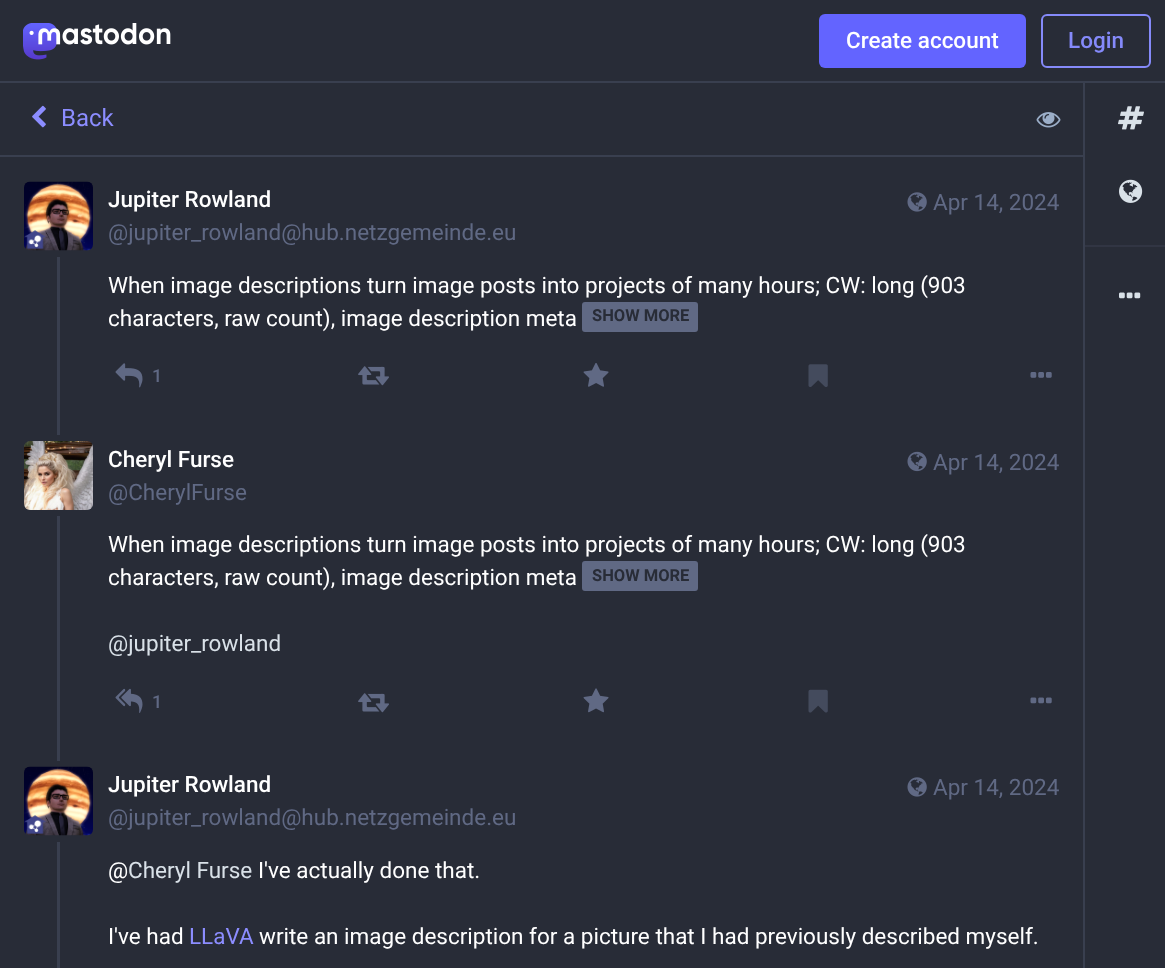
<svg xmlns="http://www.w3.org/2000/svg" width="1165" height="968">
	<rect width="100%" height="100%" fill="#282C37" />
	<rect x="0" y="81" width="1165" height="2" fill="#393F4F" />
	<image x="23" y="23" width="148" height="37" href="assets/img1.png" />
	<rect x="819" y="14" width="207" height="54" rx="6" fill="#6364FF" />
	<text x="846" y="48" font-family="Roboto" font-size="22.5" font-weight="500" fill="#FFFFFF">Create account</text>
	<rect x="1042" y="15" width="108" height="52" rx="5" fill="none" stroke="#858AFA" stroke-width="2" />
	<text x="1068" y="48" font-family="Roboto" font-size="22.5" font-weight="500" fill="#858AFA">Login</text>
	<rect x="0" y="155" width="1083" height="2" fill="#393F4F" />
	<image x="32" y="105" width="14" height="23" href="assets/img2.png" />
	<text x="61" y="126" font-family="Roboto" font-size="24" fill="#8C8DFF">Back</text>
	<image x="1036" y="112" width="25" height="16" href="assets/img3.png" />
	<image x="24" y="181" width="69" height="70" href="assets/img4.png" />
	<text x="108" y="207" font-family="Roboto" font-size="22.5" font-weight="500" fill="#FFFFFF">Jupiter Rowland</text>
	<text x="108" y="240" font-family="Roboto" font-size="22.5" fill="#606984">@jupiter_rowland@hub.netzgemeinde.eu</text>
	<image x="907" y="192" width="20" height="20" href="assets/img5.png" />
	<text x="933" y="210" font-family="Roboto" font-size="22.5" fill="#606984">Apr 14, 2024</text>
	<rect x="57" y="257" width="3" height="711" fill="#393F4F" />
	<g font-family="Roboto" font-size="22.5" fill="#FFFFFF">
		<text x="108" y="293">When image descriptions turn image posts into projects of many hours; CW: long (903</text>
		<text x="108" y="326">characters, raw count), image description meta</text>
	</g>
	<rect x="582" y="302" width="116" height="30" rx="3" fill="#606984" />
	<text x="592" y="321" font-family="Roboto" font-size="16.5" font-weight="700" fill="#282C37">SHOW MORE</text>
	<image x="115" y="363" width="28" height="25" href="assets/img6.png" />
	<text x="152" y="382" font-family="Roboto" font-size="18" font-weight="500" fill="#606984">1</text>
	<image x="358" y="366" width="31" height="20" href="assets/img7.png" />
	<image x="583" y="363" width="26" height="24" href="assets/img8.png" />
	<image x="808" y="364" width="20" height="23" href="assets/img9.png" />
	<image x="1030" y="372" width="22" height="6" href="assets/img10.png" />
	<rect x="57" y="435" width="3" height="81" fill="#282C37" />
	<image x="24" y="441" width="69" height="69" href="assets/img11.png" />
	<text x="108" y="467" font-family="Roboto" font-size="22.5" font-weight="500" fill="#FFFFFF">Cheryl Furse</text>
	<text x="108" y="500" font-family="Roboto" font-size="22.5" fill="#606984">@CherylFurse</text>
	<image x="907" y="451" width="20" height="21" href="assets/img12.png" />
	<text x="933" y="470" font-family="Roboto" font-size="22.5" fill="#606984">Apr 14, 2024</text>
	<g font-family="Roboto" font-size="22.5" fill="#FFFFFF">
		<text x="108" y="552">When image descriptions turn image posts into projects of many hours; CW: long (903</text>
		<text x="108" y="585">characters, raw count), image description meta</text>
	</g>
	<rect x="582" y="561" width="116" height="30" rx="3" fill="#606984" />
	<text x="592" y="581" font-family="Roboto" font-size="16.5" font-weight="700" fill="#282C37">SHOW MORE</text>
	<text x="108" y="651" font-family="Roboto" font-size="22.5" fill="#D9E1E8">@jupiter_rowland</text>
	<image x="115" y="688" width="28" height="25" href="assets/img13.png" />
	<text x="152" y="708" font-family="Roboto" font-size="18" font-weight="500" fill="#606984">1</text>
	<image x="358" y="693" width="31" height="20" href="assets/img7.png" />
	<image x="583" y="688" width="26" height="25" href="assets/img14.png" />
	<image x="808" y="689" width="20" height="24" href="assets/img15.png" />
	<image x="1030" y="697" width="22" height="7" href="assets/img16.png" />
	<rect x="57" y="761" width="3" height="81" fill="#282C37" />
	<image x="24" y="766" width="69" height="70" href="assets/img4.png" />
	<text x="108" y="792" font-family="Roboto" font-size="22.5" font-weight="500" fill="#FFFFFF">Jupiter Rowland</text>
	<text x="108" y="825" font-family="Roboto" font-size="22.5" fill="#606984">@jupiter_rowland@hub.netzgemeinde.eu</text>
	<image x="907" y="777" width="20" height="20" href="assets/img5.png" />
	<text x="933" y="795" font-family="Roboto" font-size="22.5" fill="#606984">Apr 14, 2024</text>
	<text x="108" y="878" font-family="Roboto" font-size="22.5" fill="#FFFFFF">@</text>
	<text x="128" y="878" font-family="Roboto" font-size="22.5" fill="#D9E1E8">Cheryl Furse</text>
	<g font-family="Roboto" font-size="22.5" fill="#FFFFFF">
		<text x="258" y="878">I've actually done that.</text>
		<text x="108" y="944">I've had</text>
	</g>
	<text x="189" y="944" font-family="Roboto" font-size="22.5" fill="#8C8DFF">LLaVA</text>
	<text x="259" y="944" font-family="Roboto" font-size="22.5" fill="#FFFFFF">write an image description for a picture that I had previously described myself.</text>
	<rect x="1083" y="83" width="2" height="885" fill="#393F4F" />
	<image x="1118" y="106" width="26" height="24" href="assets/img17.png" />
	<image x="1119" y="179" width="24" height="24" href="assets/img18.png" />
	<rect x="1085" y="245" width="80" height="2" fill="#313543" />
	<image x="1119" y="292" width="22" height="7" href="assets/img19.png" />
</svg>
